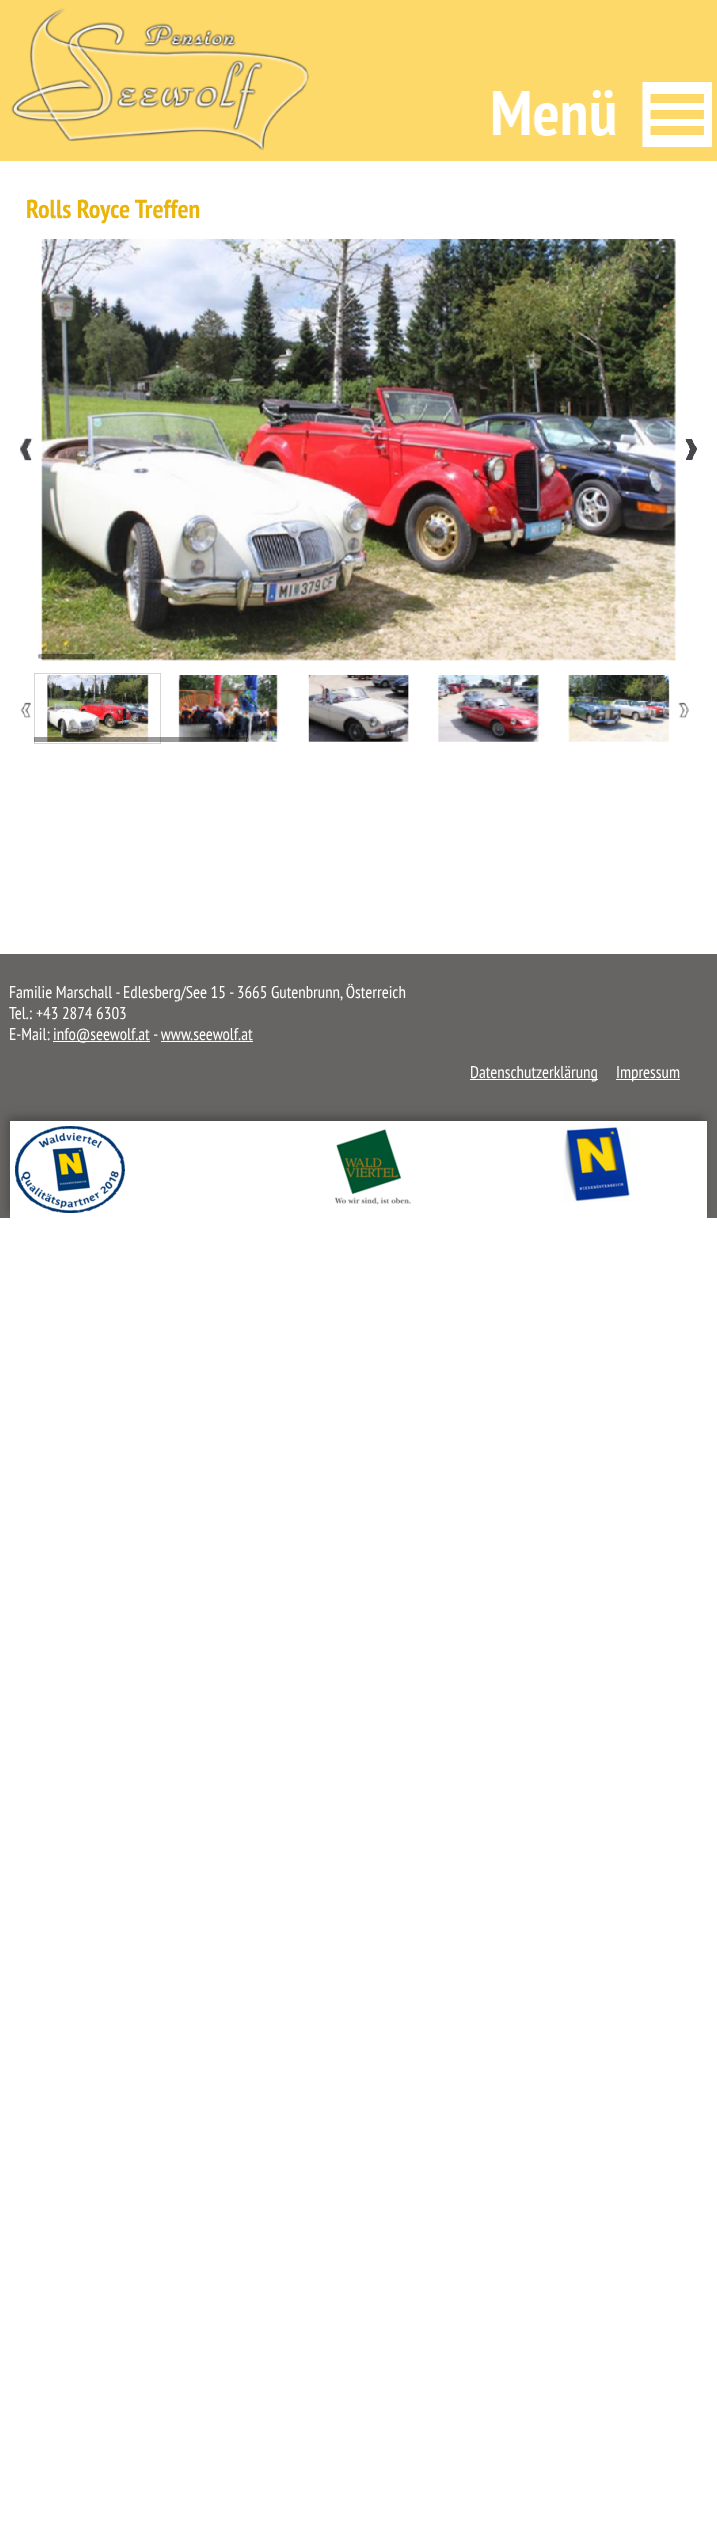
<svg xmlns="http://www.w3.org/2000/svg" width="717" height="2534">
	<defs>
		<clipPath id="clip1"><rect x="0" y="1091" width="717" height="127" /></clipPath>
	</defs>
	<rect width="100%" height="100%" fill="#FFFFFF" />
	<rect x="0" y="0" width="717" height="161" fill="#FDD969" />
	<image x="11" y="8" width="298" height="143" href="assets/img1.png" />
	<image x="492" y="82" width="220" height="65" href="assets/img2.png" />
	<text x="26" y="218" font-family="PT Sans Narrow" font-size="26" font-weight="700" fill="#EAB40B">Rolls Royce Treffen</text>
	<image x="20" y="438" width="13" height="23" href="assets/img3.png" />
	<image x="41" y="239" width="635" height="422" href="assets/img4.png" />
	<image x="38" y="654" width="3" height="5" href="assets/img5.png" />
	<image x="41" y="654" width="52" height="5" href="assets/img6.png" />
	<image x="92" y="654" width="4" height="5" href="assets/img7.png" />
	<image x="685" y="439" width="12" height="21" href="assets/img8.png" />
	<image x="20" y="702" width="11" height="16" href="assets/img9.png" />
	<rect x="34.4" y="673.4" width="126.2" height="70.2" fill="none" stroke="#CCCCCC" stroke-width="0.8" />
	<image x="47" y="675" width="102" height="67" href="assets/img10.png" />
	<image x="178" y="675" width="101" height="67" href="assets/img11.png" />
	<image x="308" y="675" width="101" height="67" href="assets/img12.png" />
	<image x="438" y="675" width="101" height="67" href="assets/img13.png" />
	<image x="568" y="675" width="102" height="67" href="assets/img14.png" />
	<rect x="34" y="737" width="3" height="5" fill="#000000" fill-opacity="0.4" />
	<image x="37" y="737" width="210" height="5" href="assets/img15.png" />
	<image x="246" y="737" width="3" height="5" href="assets/img16.png" />
	<image x="678" y="702" width="11" height="16" href="assets/img17.png" />
	<rect x="0" y="954" width="717" height="264" fill="#676564" />
	<g font-family="PT Sans Narrow" font-size="17" fill="#FFFFFF">
		<text x="9" y="998">Familie Marschall - Edlesberg/See 15 - 3665 Gutenbrunn, Österreich</text>
		<text x="9" y="1019">Tel.: +43 2874 6303</text>
		<text x="9" y="1040">E-Mail:</text>
	</g>
	<rect x="53" y="1041" width="97" height="1" fill="#FFFFFF" />
	<text x="53" y="1040" font-family="PT Sans Narrow" font-size="17" fill="#FFFFFF">info@seewolf.at - www.seewolf.at</text>
	<rect x="161" y="1041" width="92" height="1" fill="#FFFFFF" />
	<rect x="470" y="1079" width="128" height="1" fill="#FFFFFF" />
	<text x="470" y="1078" font-family="PT Sans Narrow" font-size="17" fill="#FFFFFF">Datenschutzerklärung</text>
	<rect x="616" y="1079" width="64" height="1" fill="#FFFFFF" />
	<text x="616" y="1078" font-family="PT Sans Narrow" font-size="17" fill="#FFFFFF">Impressum</text>
	<g clip-path="url(#clip1)">
		<rect x="8" y="1117" width="697" height="97" fill="#4A4A4A" filter="blur(5px)" />
	</g>
	<rect x="10" y="1121" width="697" height="97" fill="#FFFFFF" />
	<image x="15" y="1126" width="110" height="87" href="assets/img18.png" />
	<image x="334" y="1129" width="77" height="76" href="assets/img19.png" />
	<image x="563" y="1127" width="67" height="75" href="assets/img20.png" />
</svg>
